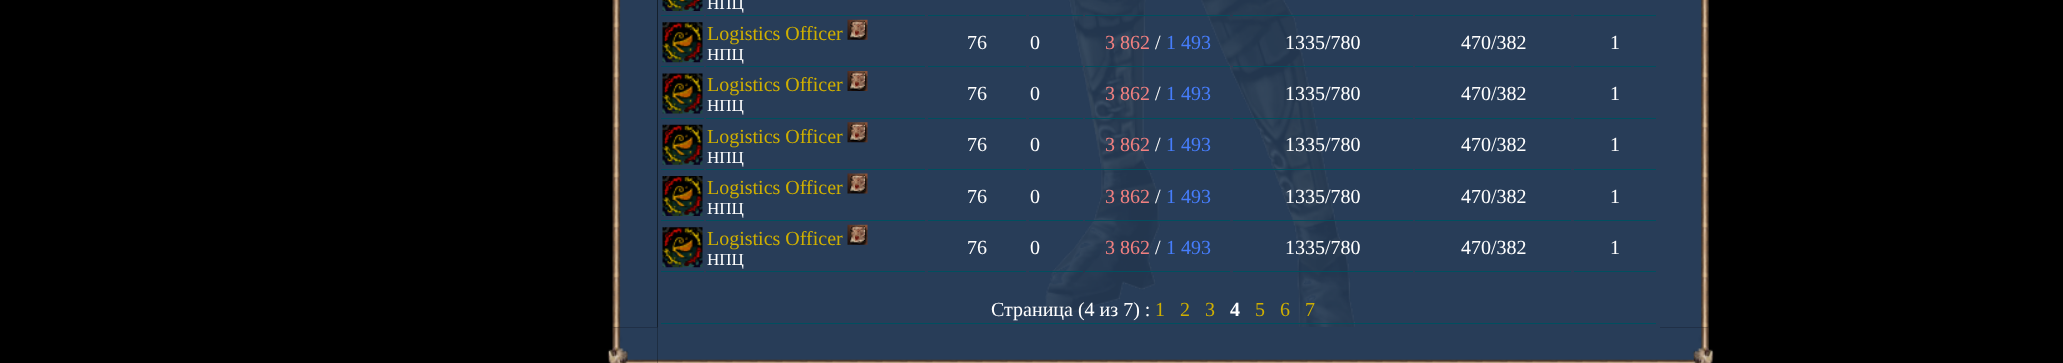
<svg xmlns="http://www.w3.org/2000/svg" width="2063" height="363">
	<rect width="100%" height="100%" fill="#000000" />
	<image x="612" y="0" width="46" height="328" href="assets/img1.png" />
	<image x="1660" y="0" width="49" height="328" href="assets/img2.png" />
	<rect x="658" y="0" width="1002" height="328" fill="#283D58" />
	<image x="1045" y="0" width="310" height="327" href="assets/img3.png" />
	<rect x="661" y="15" width="43" height="1" fill="#004F5F" />
	<image x="662" y="0" width="41" height="11" href="assets/img4.png" />
	<rect x="706" y="15" width="219" height="1" fill="#004F5F" />
	<text x="707" y="9" font-family="Liberation Serif" font-size="17" fill="#FFFFFF">НПЦ</text>
	<rect x="928" y="15" width="98" height="1" fill="#004F5F" />
	<rect x="1029" y="15" width="54" height="1" fill="#004F5F" />
	<rect x="1085" y="15" width="145" height="1" fill="#004F5F" />
	<rect x="1233" y="15" width="180" height="1" fill="#004F5F" />
	<rect x="1415" y="15" width="156" height="1" fill="#004F5F" />
	<rect x="1574" y="15" width="82" height="1" fill="#004F5F" />
	<rect x="661" y="66" width="43" height="1" fill="#004F5F" />
	<image x="662" y="22" width="41" height="41" href="assets/img5.png" />
	<rect x="706" y="66" width="219" height="1" fill="#004F5F" />
	<text x="707" y="40" font-family="Liberation Serif" font-size="20" fill="#CFAF00">Logistics Officer</text>
	<image x="847" y="19" width="21" height="21" href="assets/img6.png" />
	<text x="707" y="60" font-family="Liberation Serif" font-size="17" fill="#FFFFFF">НПЦ</text>
	<rect x="928" y="66" width="98" height="1" fill="#004F5F" />
	<text x="967" y="49" font-family="Liberation Serif" font-size="20" fill="#FFFFFF">76</text>
	<rect x="1029" y="66" width="54" height="1" fill="#004F5F" />
	<text x="1030" y="49" font-family="Liberation Serif" font-size="20" fill="#FFFFFF">0</text>
	<rect x="1085" y="66" width="145" height="1" fill="#004F5F" />
	<text x="1105" y="49" font-family="Liberation Serif" font-size="20" fill="#F28080">3 862</text>
	<text x="1155" y="49" font-family="Liberation Serif" font-size="20" fill="#FFFFFF">/</text>
	<text x="1166" y="49" font-family="Liberation Serif" font-size="20" fill="#467DFB">1 493</text>
	<rect x="1233" y="66" width="180" height="1" fill="#004F5F" />
	<text x="1285" y="49" font-family="Liberation Serif" font-size="20" fill="#FFFFFF">1335/780</text>
	<rect x="1415" y="66" width="156" height="1" fill="#004F5F" />
	<text x="1461" y="49" font-family="Liberation Serif" font-size="20" fill="#FFFFFF">470/382</text>
	<rect x="1574" y="66" width="82" height="1" fill="#004F5F" />
	<text x="1610" y="49" font-family="Liberation Serif" font-size="20" fill="#FFFFFF">1</text>
	<rect x="661" y="118" width="43" height="1" fill="#004F5F" />
	<image x="662" y="73" width="41" height="41" href="assets/img7.png" />
	<rect x="706" y="118" width="219" height="1" fill="#004F5F" />
	<text x="707" y="91" font-family="Liberation Serif" font-size="20" fill="#CFAF00">Logistics Officer</text>
	<image x="847" y="71" width="21" height="20" href="assets/img8.png" />
	<text x="707" y="111" font-family="Liberation Serif" font-size="17" fill="#FFFFFF">НПЦ</text>
	<rect x="928" y="118" width="98" height="1" fill="#004F5F" />
	<text x="967" y="100" font-family="Liberation Serif" font-size="20" fill="#FFFFFF">76</text>
	<rect x="1029" y="118" width="54" height="1" fill="#004F5F" />
	<text x="1030" y="100" font-family="Liberation Serif" font-size="20" fill="#FFFFFF">0</text>
	<rect x="1085" y="118" width="145" height="1" fill="#004F5F" />
	<text x="1105" y="100" font-family="Liberation Serif" font-size="20" fill="#F28080">3 862</text>
	<text x="1155" y="100" font-family="Liberation Serif" font-size="20" fill="#FFFFFF">/</text>
	<text x="1166" y="100" font-family="Liberation Serif" font-size="20" fill="#467DFB">1 493</text>
	<rect x="1233" y="118" width="180" height="1" fill="#004F5F" />
	<text x="1285" y="100" font-family="Liberation Serif" font-size="20" fill="#FFFFFF">1335/780</text>
	<rect x="1415" y="118" width="156" height="1" fill="#004F5F" />
	<text x="1461" y="100" font-family="Liberation Serif" font-size="20" fill="#FFFFFF">470/382</text>
	<rect x="1574" y="118" width="82" height="1" fill="#004F5F" />
	<text x="1610" y="100" font-family="Liberation Serif" font-size="20" fill="#FFFFFF">1</text>
	<rect x="661" y="169" width="43" height="1" fill="#004F5F" />
	<image x="662" y="124" width="41" height="41" href="assets/img9.png" />
	<rect x="706" y="169" width="219" height="1" fill="#004F5F" />
	<text x="707" y="143" font-family="Liberation Serif" font-size="20" fill="#CFAF00">Logistics Officer</text>
	<image x="847" y="122" width="21" height="21" href="assets/img10.png" />
	<text x="707" y="163" font-family="Liberation Serif" font-size="17" fill="#FFFFFF">НПЦ</text>
	<rect x="928" y="169" width="98" height="1" fill="#004F5F" />
	<text x="967" y="151" font-family="Liberation Serif" font-size="20" fill="#FFFFFF">76</text>
	<rect x="1029" y="169" width="54" height="1" fill="#004F5F" />
	<text x="1030" y="151" font-family="Liberation Serif" font-size="20" fill="#FFFFFF">0</text>
	<rect x="1085" y="169" width="145" height="1" fill="#004F5F" />
	<text x="1105" y="151" font-family="Liberation Serif" font-size="20" fill="#F28080">3 862</text>
	<text x="1155" y="151" font-family="Liberation Serif" font-size="20" fill="#FFFFFF">/</text>
	<text x="1166" y="151" font-family="Liberation Serif" font-size="20" fill="#467DFB">1 493</text>
	<rect x="1233" y="169" width="180" height="1" fill="#004F5F" />
	<text x="1285" y="151" font-family="Liberation Serif" font-size="20" fill="#FFFFFF">1335/780</text>
	<rect x="1415" y="169" width="156" height="1" fill="#004F5F" />
	<text x="1461" y="151" font-family="Liberation Serif" font-size="20" fill="#FFFFFF">470/382</text>
	<rect x="1574" y="169" width="82" height="1" fill="#004F5F" />
	<text x="1610" y="151" font-family="Liberation Serif" font-size="20" fill="#FFFFFF">1</text>
	<rect x="661" y="220" width="43" height="1" fill="#004F5F" />
	<image x="662" y="176" width="41" height="40" href="assets/img11.png" />
	<rect x="706" y="220" width="219" height="1" fill="#004F5F" />
	<text x="707" y="194" font-family="Liberation Serif" font-size="20" fill="#CFAF00">Logistics Officer</text>
	<image x="847" y="173" width="21" height="21" href="assets/img12.png" />
	<text x="707" y="214" font-family="Liberation Serif" font-size="17" fill="#FFFFFF">НПЦ</text>
	<rect x="928" y="220" width="98" height="1" fill="#004F5F" />
	<text x="967" y="203" font-family="Liberation Serif" font-size="20" fill="#FFFFFF">76</text>
	<rect x="1029" y="220" width="54" height="1" fill="#004F5F" />
	<text x="1030" y="203" font-family="Liberation Serif" font-size="20" fill="#FFFFFF">0</text>
	<rect x="1085" y="220" width="145" height="1" fill="#004F5F" />
	<text x="1105" y="203" font-family="Liberation Serif" font-size="20" fill="#F28080">3 862</text>
	<text x="1155" y="203" font-family="Liberation Serif" font-size="20" fill="#FFFFFF">/</text>
	<text x="1166" y="203" font-family="Liberation Serif" font-size="20" fill="#467DFB">1 493</text>
	<rect x="1233" y="220" width="180" height="1" fill="#004F5F" />
	<text x="1285" y="203" font-family="Liberation Serif" font-size="20" fill="#FFFFFF">1335/780</text>
	<rect x="1415" y="220" width="156" height="1" fill="#004F5F" />
	<text x="1461" y="203" font-family="Liberation Serif" font-size="20" fill="#FFFFFF">470/382</text>
	<rect x="1574" y="220" width="82" height="1" fill="#004F5F" />
	<text x="1610" y="203" font-family="Liberation Serif" font-size="20" fill="#FFFFFF">1</text>
	<rect x="661" y="271" width="43" height="1" fill="#004F5F" />
	<image x="662" y="227" width="41" height="41" href="assets/img5.png" />
	<rect x="706" y="271" width="219" height="1" fill="#004F5F" />
	<text x="707" y="245" font-family="Liberation Serif" font-size="20" fill="#CFAF00">Logistics Officer</text>
	<image x="847" y="224" width="21" height="21" href="assets/img6.png" />
	<text x="707" y="265" font-family="Liberation Serif" font-size="17" fill="#FFFFFF">НПЦ</text>
	<rect x="928" y="271" width="98" height="1" fill="#004F5F" />
	<text x="967" y="254" font-family="Liberation Serif" font-size="20" fill="#FFFFFF">76</text>
	<rect x="1029" y="271" width="54" height="1" fill="#004F5F" />
	<text x="1030" y="254" font-family="Liberation Serif" font-size="20" fill="#FFFFFF">0</text>
	<rect x="1085" y="271" width="145" height="1" fill="#004F5F" />
	<text x="1105" y="254" font-family="Liberation Serif" font-size="20" fill="#F28080">3 862</text>
	<text x="1155" y="254" font-family="Liberation Serif" font-size="20" fill="#FFFFFF">/</text>
	<text x="1166" y="254" font-family="Liberation Serif" font-size="20" fill="#467DFB">1 493</text>
	<rect x="1233" y="271" width="180" height="1" fill="#004F5F" />
	<text x="1285" y="254" font-family="Liberation Serif" font-size="20" fill="#FFFFFF">1335/780</text>
	<rect x="1415" y="271" width="156" height="1" fill="#004F5F" />
	<text x="1461" y="254" font-family="Liberation Serif" font-size="20" fill="#FFFFFF">470/382</text>
	<rect x="1574" y="271" width="82" height="1" fill="#004F5F" />
	<text x="1610" y="254" font-family="Liberation Serif" font-size="20" fill="#FFFFFF">1</text>
	<rect x="661" y="323" width="995" height="1" fill="#004F5F" />
	<text x="991" y="316" font-family="Liberation Serif" font-size="20" fill="#FFFFFF">Страница (4 из 7) :</text>
	<g font-family="Liberation Serif" font-size="20" fill="#CFAF00">
		<text x="1155" y="316">1</text>
		<text x="1180" y="316">2</text>
		<text x="1205" y="316">3</text>
	</g>
	<text x="1230" y="316" font-family="Liberation Serif" font-size="20" font-weight="700" fill="#FFFFFF">4</text>
	<g font-family="Liberation Serif" font-size="20" fill="#CFAF00">
		<text x="1255" y="316">5</text>
		<text x="1280" y="316">6</text>
		<text x="1305" y="316">7</text>
	</g>
	<image x="607" y="327" width="51" height="36" href="assets/img13.png" />
	<image x="657" y="327" width="1003" height="36" href="assets/img14.png" />
	<image x="1660" y="327" width="54" height="36" href="assets/img15.png" />
</svg>
